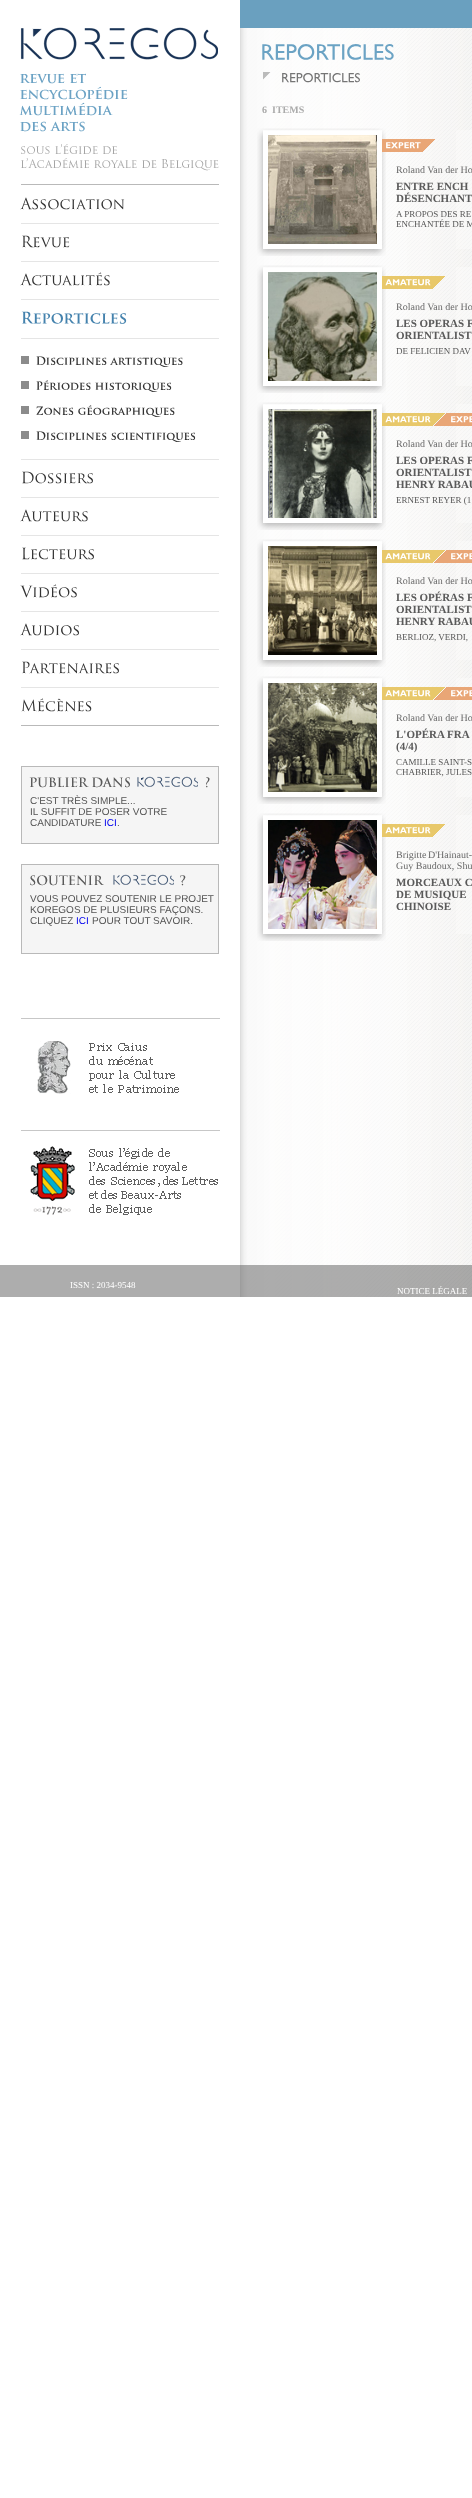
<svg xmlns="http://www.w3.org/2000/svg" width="472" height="2498">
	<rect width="100%" height="100%" fill="#FFFFFF" />
	<rect x="240" y="0" width="232" height="28" fill="#6AA0BF" />
	<image x="0" y="28" width="472" height="1269" href="assets/img1.png" />
	<image x="0" y="0" width="240" height="185" href="assets/img2.png" />
	<rect x="21" y="725" width="198" height="1" fill="#B9B9B9" />
	<image x="20" y="197" width="105" height="13" href="assets/img3.png" />
	<rect x="21" y="223" width="198" height="1" fill="#E5E5E5" />
	<image x="22" y="235" width="48" height="13" href="assets/img4.png" />
	<rect x="21" y="261" width="198" height="1" fill="#E5E5E5" />
	<image x="20" y="272" width="90" height="14" href="assets/img5.png" />
	<rect x="21" y="299" width="198" height="1" fill="#E5E5E5" />
	<image x="21" y="311" width="106" height="13" href="assets/img6.png" />
	<rect x="21" y="338" width="198" height="1" fill="#E5E5E5" />
	<rect x="21" y="356" width="8" height="8" fill="#8B8B8B" />
	<image x="36" y="356" width="71" height="9" href="assets/img7.png" />
	<image x="110" y="357" width="73" height="10" href="assets/img8.png" />
	<rect x="21" y="381" width="8" height="8" fill="#8B8B8B" />
	<image x="36" y="380" width="55" height="10" href="assets/img9.png" />
	<image x="95" y="382" width="77" height="10" href="assets/img10.png" />
	<rect x="21" y="406" width="8" height="8" fill="#8B8B8B" />
	<image x="36" y="406" width="38" height="9" href="assets/img11.png" />
	<image x="78" y="405" width="97" height="12" href="assets/img12.png" />
	<rect x="21" y="431" width="8" height="8" fill="#8B8B8B" />
	<image x="36" y="431" width="71" height="9" href="assets/img7.png" />
	<image x="111" y="432" width="85" height="10" href="assets/img13.png" />
	<rect x="21" y="459" width="198" height="1" fill="#E5E5E5" />
	<image x="22" y="471" width="71" height="13" href="assets/img14.png" />
	<rect x="21" y="497" width="198" height="1" fill="#E5E5E5" />
	<image x="20" y="509" width="68" height="13" href="assets/img15.png" />
	<rect x="21" y="535" width="198" height="1" fill="#E5E5E5" />
	<image x="22" y="547" width="72" height="13" href="assets/img16.png" />
	<rect x="21" y="573" width="198" height="1" fill="#E5E5E5" />
	<image x="20" y="584" width="57" height="14" href="assets/img17.png" />
	<rect x="21" y="611" width="198" height="1" fill="#E5E5E5" />
	<image x="20" y="623" width="59" height="13" href="assets/img18.png" />
	<rect x="21" y="649" width="198" height="1" fill="#E5E5E5" />
	<image x="22" y="661" width="97" height="13" href="assets/img19.png" />
	<rect x="21" y="687" width="198" height="1" fill="#E5E5E5" />
	<image x="21" y="698" width="71" height="14" href="assets/img20.png" />
	<image x="21" y="766" width="198" height="78" href="assets/img21.png" />
	<g font-family="Liberation Sans" font-size="10" fill="#545454">
		<text x="30" y="804">C'EST TRÈS SIMPLE...</text>
		<text x="30" y="815">IL SUFFIT DE POSER VOTRE</text>
		<text x="30" y="826">CANDIDATURE</text>
	</g>
	<text x="104" y="826" font-family="Liberation Sans" font-size="10" fill="#0000EE">ICI</text>
	<text x="117" y="826" font-family="Liberation Sans" font-size="10" fill="#545454">.</text>
	<image x="21" y="864" width="198" height="90" href="assets/img22.png" />
	<g font-family="Liberation Sans" font-size="10" fill="#545454">
		<text x="30" y="902">VOUS POUVEZ SOUTENIR LE PROJET</text>
		<text x="30" y="913">KOREGOS DE PLUSIEURS FAÇONS.</text>
		<text x="30" y="924">CLIQUEZ</text>
	</g>
	<text x="76" y="924" font-family="Liberation Sans" font-size="10" fill="#0000EE">ICI</text>
	<text x="92" y="924" font-family="Liberation Sans" font-size="10" fill="#545454">POUR TOUT SAVOIR.</text>
	<rect x="21" y="1018" width="199" height="1" fill="#C7C7C7" />
	<image x="37" y="1041" width="142" height="53" href="assets/img23.png" />
	<rect x="21" y="1130" width="199" height="1" fill="#C7C7C7" />
	<image x="30" y="1146" width="188" height="69" href="assets/img24.png" />
	<image x="262" y="44" width="132" height="16" href="assets/img25.png" />
	<image x="263" y="72" width="8" height="8" href="assets/img26.png" />
	<image x="282" y="73" width="78" height="10" href="assets/img27.png" />
	<text x="262" y="113" font-family="Liberation Serif" font-size="10" font-weight="700" fill="#ABABAB" xml:space="preserve">6  ITEMS</text>
	<image x="257" y="128" width="129" height="128" href="assets/img28.png" />
	<image x="456" y="130" width="16" height="119" href="assets/img29.png" />
	<rect x="382" y="139" width="39" height="13" fill="#E9A676" />
	<image x="386" y="142" width="35" height="7" href="assets/img30.png" />
	<image x="421" y="139" width="14" height="13" href="assets/img31.png" />
	<text x="396" y="173" font-family="Liberation Serif" font-size="10" fill="#686868">Roland Van der Ho</text>
	<g font-family="Liberation Serif" font-size="11" font-weight="700" fill="#5A5A5A">
		<text x="396" y="190">ENTRE ENCH</text>
		<text x="396" y="202">DÉSENCHANT</text>
	</g>
	<g font-family="Liberation Serif" font-size="9" fill="#5A5A5A">
		<text x="396" y="217">A PROPOS DES RE</text>
		<text x="396" y="227">ENCHANTÉE DE M</text>
	</g>
	<image x="257" y="265" width="129" height="128" href="assets/img32.png" />
	<image x="456" y="267" width="16" height="119" href="assets/img33.png" />
	<rect x="382" y="276" width="49" height="13" fill="#E8C86A" />
	<image x="385" y="279" width="46" height="7" href="assets/img34.png" />
	<image x="431" y="276" width="14" height="13" href="assets/img35.png" />
	<text x="396" y="310" font-family="Liberation Serif" font-size="10" fill="#686868">Roland Van der Ho</text>
	<g font-family="Liberation Serif" font-size="11" font-weight="700" fill="#5A5A5A">
		<text x="396" y="327">LES OPERAS F</text>
		<text x="396" y="339">ORIENTALIST</text>
	</g>
	<text x="396" y="354" font-family="Liberation Serif" font-size="9" fill="#5A5A5A">DE FELICIEN DAV</text>
	<image x="257" y="402" width="129" height="128" href="assets/img36.png" />
	<image x="456" y="404" width="16" height="119" href="assets/img37.png" />
	<rect x="382" y="413" width="49" height="13" fill="#E8C86A" />
	<image x="385" y="416" width="46" height="7" href="assets/img34.png" />
	<image x="431" y="413" width="14" height="13" href="assets/img38.png" />
	<image x="434" y="413" width="13" height="13" href="assets/img39.png" />
	<rect x="447" y="413" width="25" height="13" fill="#E9A676" />
	<image x="451" y="416" width="21" height="7" href="assets/img40.png" />
	<text x="396" y="447" font-family="Liberation Serif" font-size="10" fill="#686868">Roland Van der Ho</text>
	<g font-family="Liberation Serif" font-size="11" font-weight="700" fill="#5A5A5A">
		<text x="396" y="464">LES OPERAS F</text>
		<text x="396" y="476">ORIENTALIST</text>
		<text x="396" y="488">HENRY RABAU</text>
	</g>
	<text x="396" y="503" font-family="Liberation Serif" font-size="9" fill="#5A5A5A">ERNEST REYER (1</text>
	<image x="257" y="539" width="129" height="128" href="assets/img41.png" />
	<image x="456" y="541" width="16" height="119" href="assets/img42.png" />
	<rect x="382" y="550" width="49" height="13" fill="#E8C86A" />
	<image x="385" y="553" width="46" height="7" href="assets/img34.png" />
	<image x="431" y="550" width="14" height="13" href="assets/img43.png" />
	<image x="434" y="550" width="13" height="13" href="assets/img44.png" />
	<rect x="447" y="550" width="25" height="13" fill="#E9A676" />
	<image x="451" y="553" width="21" height="7" href="assets/img40.png" />
	<text x="396" y="584" font-family="Liberation Serif" font-size="10" fill="#686868">Roland Van der Ho</text>
	<g font-family="Liberation Serif" font-size="11" font-weight="700" fill="#5A5A5A">
		<text x="396" y="601">LES OPÉRAS F</text>
		<text x="396" y="613">ORIENTALIST</text>
		<text x="396" y="625">HENRY RABAU</text>
	</g>
	<text x="396" y="640" font-family="Liberation Serif" font-size="9" fill="#5A5A5A">BERLIOZ, VERDI,</text>
	<image x="257" y="676" width="129" height="128" href="assets/img45.png" />
	<image x="456" y="678" width="16" height="119" href="assets/img29.png" />
	<rect x="382" y="687" width="49" height="13" fill="#E8C86A" />
	<image x="385" y="690" width="46" height="7" href="assets/img34.png" />
	<image x="431" y="687" width="14" height="13" href="assets/img46.png" />
	<image x="434" y="687" width="13" height="13" href="assets/img47.png" />
	<rect x="447" y="687" width="25" height="13" fill="#E9A676" />
	<image x="451" y="690" width="21" height="7" href="assets/img40.png" />
	<text x="396" y="721" font-family="Liberation Serif" font-size="10" fill="#686868">Roland Van der Ho</text>
	<g font-family="Liberation Serif" font-size="11" font-weight="700" fill="#5A5A5A">
		<text x="396" y="738">L'OPÉRA FRA</text>
		<text x="396" y="750">(4/4)</text>
	</g>
	<g font-family="Liberation Serif" font-size="9" fill="#5A5A5A">
		<text x="396" y="765">CAMILLE SAINT-S</text>
		<text x="396" y="775">CHABRIER, JULES</text>
	</g>
	<image x="257" y="813" width="129" height="128" href="assets/img48.png" />
	<image x="456" y="815" width="16" height="119" href="assets/img33.png" />
	<rect x="382" y="824" width="49" height="13" fill="#E8C86A" />
	<image x="385" y="827" width="46" height="7" href="assets/img34.png" />
	<image x="431" y="824" width="14" height="13" href="assets/img35.png" />
	<g font-family="Liberation Serif" font-size="10" fill="#686868">
		<text x="396" y="858" word-spacing="-1">Brigitte D'Hainaut-</text>
		<text x="396" y="869">Guy Baudoux, Shu</text>
	</g>
	<g font-family="Liberation Serif" font-size="11" font-weight="700" fill="#5A5A5A">
		<text x="396" y="886">MORCEAUX C</text>
		<text x="396" y="898">DE MUSIQUE</text>
		<text x="396" y="910">CHINOISE</text>
	</g>
	<rect x="0" y="1265" width="472" height="32" fill="#5C5C5C" fill-opacity="0.5" />
	<g font-family="Liberation Serif" font-size="9" fill="#FFFFFF">
		<text x="70" y="1288">ISSN : 2034-9548</text>
		<text x="397" y="1294">NOTICE LÉGALE</text>
	</g>
</svg>
